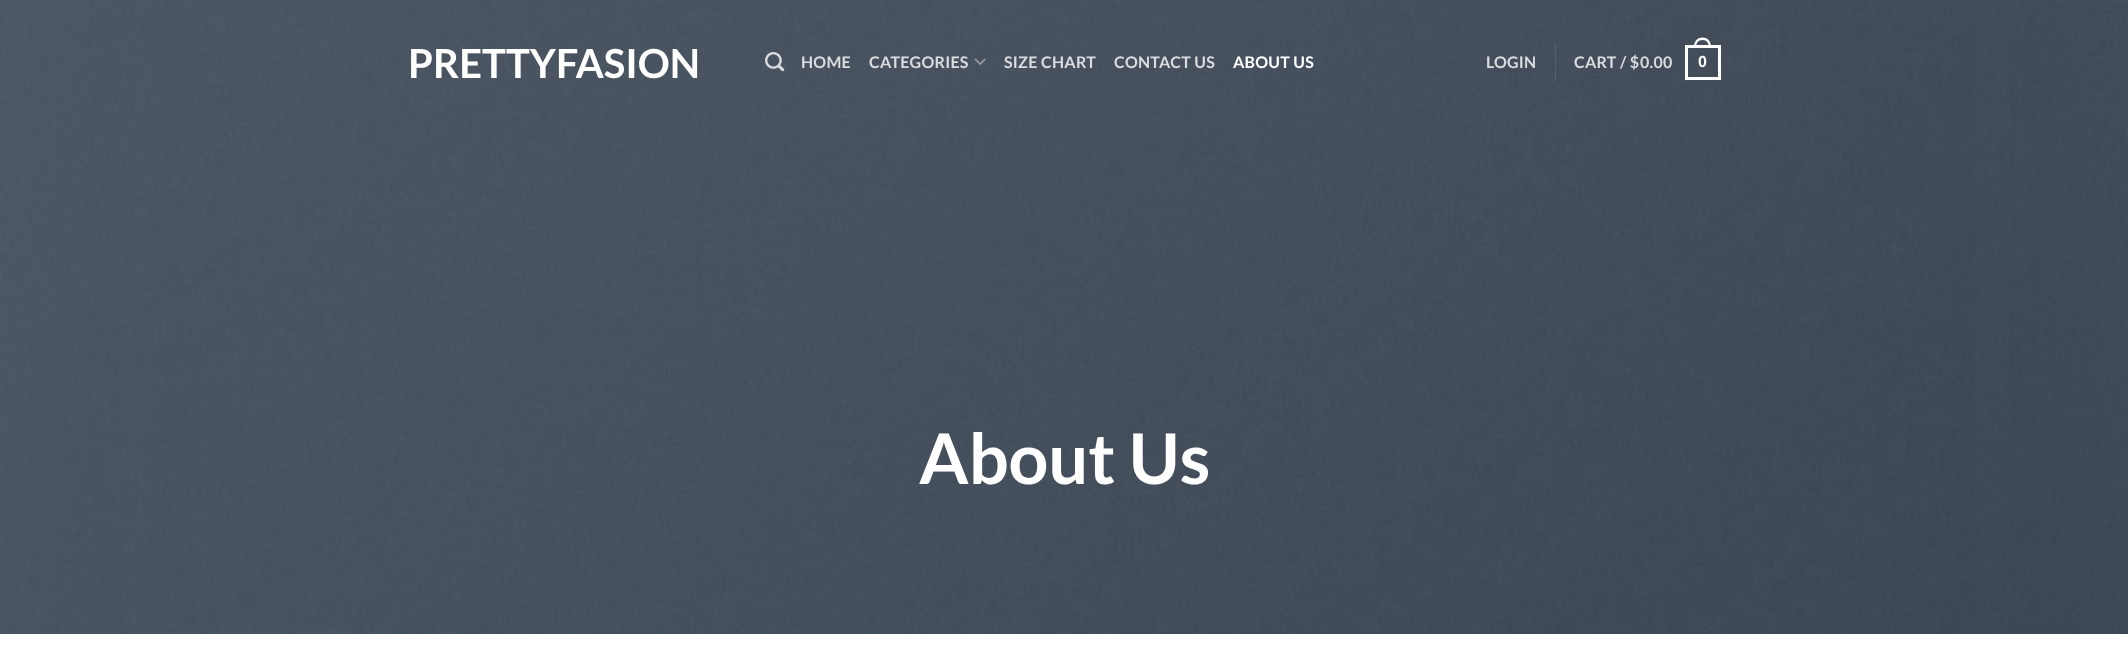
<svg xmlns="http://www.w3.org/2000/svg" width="2128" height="655">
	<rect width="100%" height="100%" fill="#FFFFFF" />
	<image x="0" y="0" width="2128" height="634" href="assets/img3.png" />
	<text x="408" y="78" font-family="Lato" font-size="40" font-weight="700" fill="#FFFFFF">PRETTYFASION</text>
	<image x="765" y="52" width="20" height="20" href="assets/img1.png" />
	<g font-family="Lato" font-size="16" font-weight="700" letter-spacing="0.25" fill="#DADCDF">
		<text x="801" y="68">HOME</text>
		<text x="869" y="68">CATEGORIES</text>
	</g>
	<image x="974" y="58" width="12" height="7" href="assets/img2.png" />
	<g font-family="Lato" font-size="16" font-weight="700" letter-spacing="0.25" fill="#DADCDF">
		<text x="1004" y="68">SIZE CHART</text>
		<text x="1114" y="68">CONTACT US</text>
	</g>
	<text x="1233" y="68" font-family="Lato" font-size="16" font-weight="700" letter-spacing="0.25" fill="#FFFFFF">ABOUT US</text>
	<text x="1486" y="68" font-family="Lato" font-size="16" font-weight="700" letter-spacing="0.25" fill="#DADCDF">LOGIN</text>
	<rect x="1555" y="44" width="1" height="37" fill="#FFFFFF" fill-opacity="0.1" />
	<g font-family="Lato" font-size="16" font-weight="700" letter-spacing="0.25" fill="#DADCDF">
		<text x="1574" y="68">CART / $</text>
		<text x="1640" y="68">0.00</text>
	</g>
	<rect x="1686.5" y="46.5" width="33" height="32" fill="none" stroke="#FFFFFF" stroke-width="3" />
	<path d="M1702.5 37.5C1708.5 37.5 1711 42 1711 47.5H1694C1694 42 1696.5 37.5 1702.5 37.5ZM1702.5 40C1707 40 1709 43.5 1709 47.5H1696C1696 43.5 1698 40 1702.5 40Z" fill="#FFFFFF" fill-rule="evenodd" />
	<text x="1698" y="67" font-family="Liberation Sans" font-size="16" font-weight="700" letter-spacing="0.25" fill="#FFFFFF">0</text>
	<text x="919" y="484" font-family="Lato" font-size="70" font-weight="700" fill="#FFFFFF">About Us</text>
</svg>
